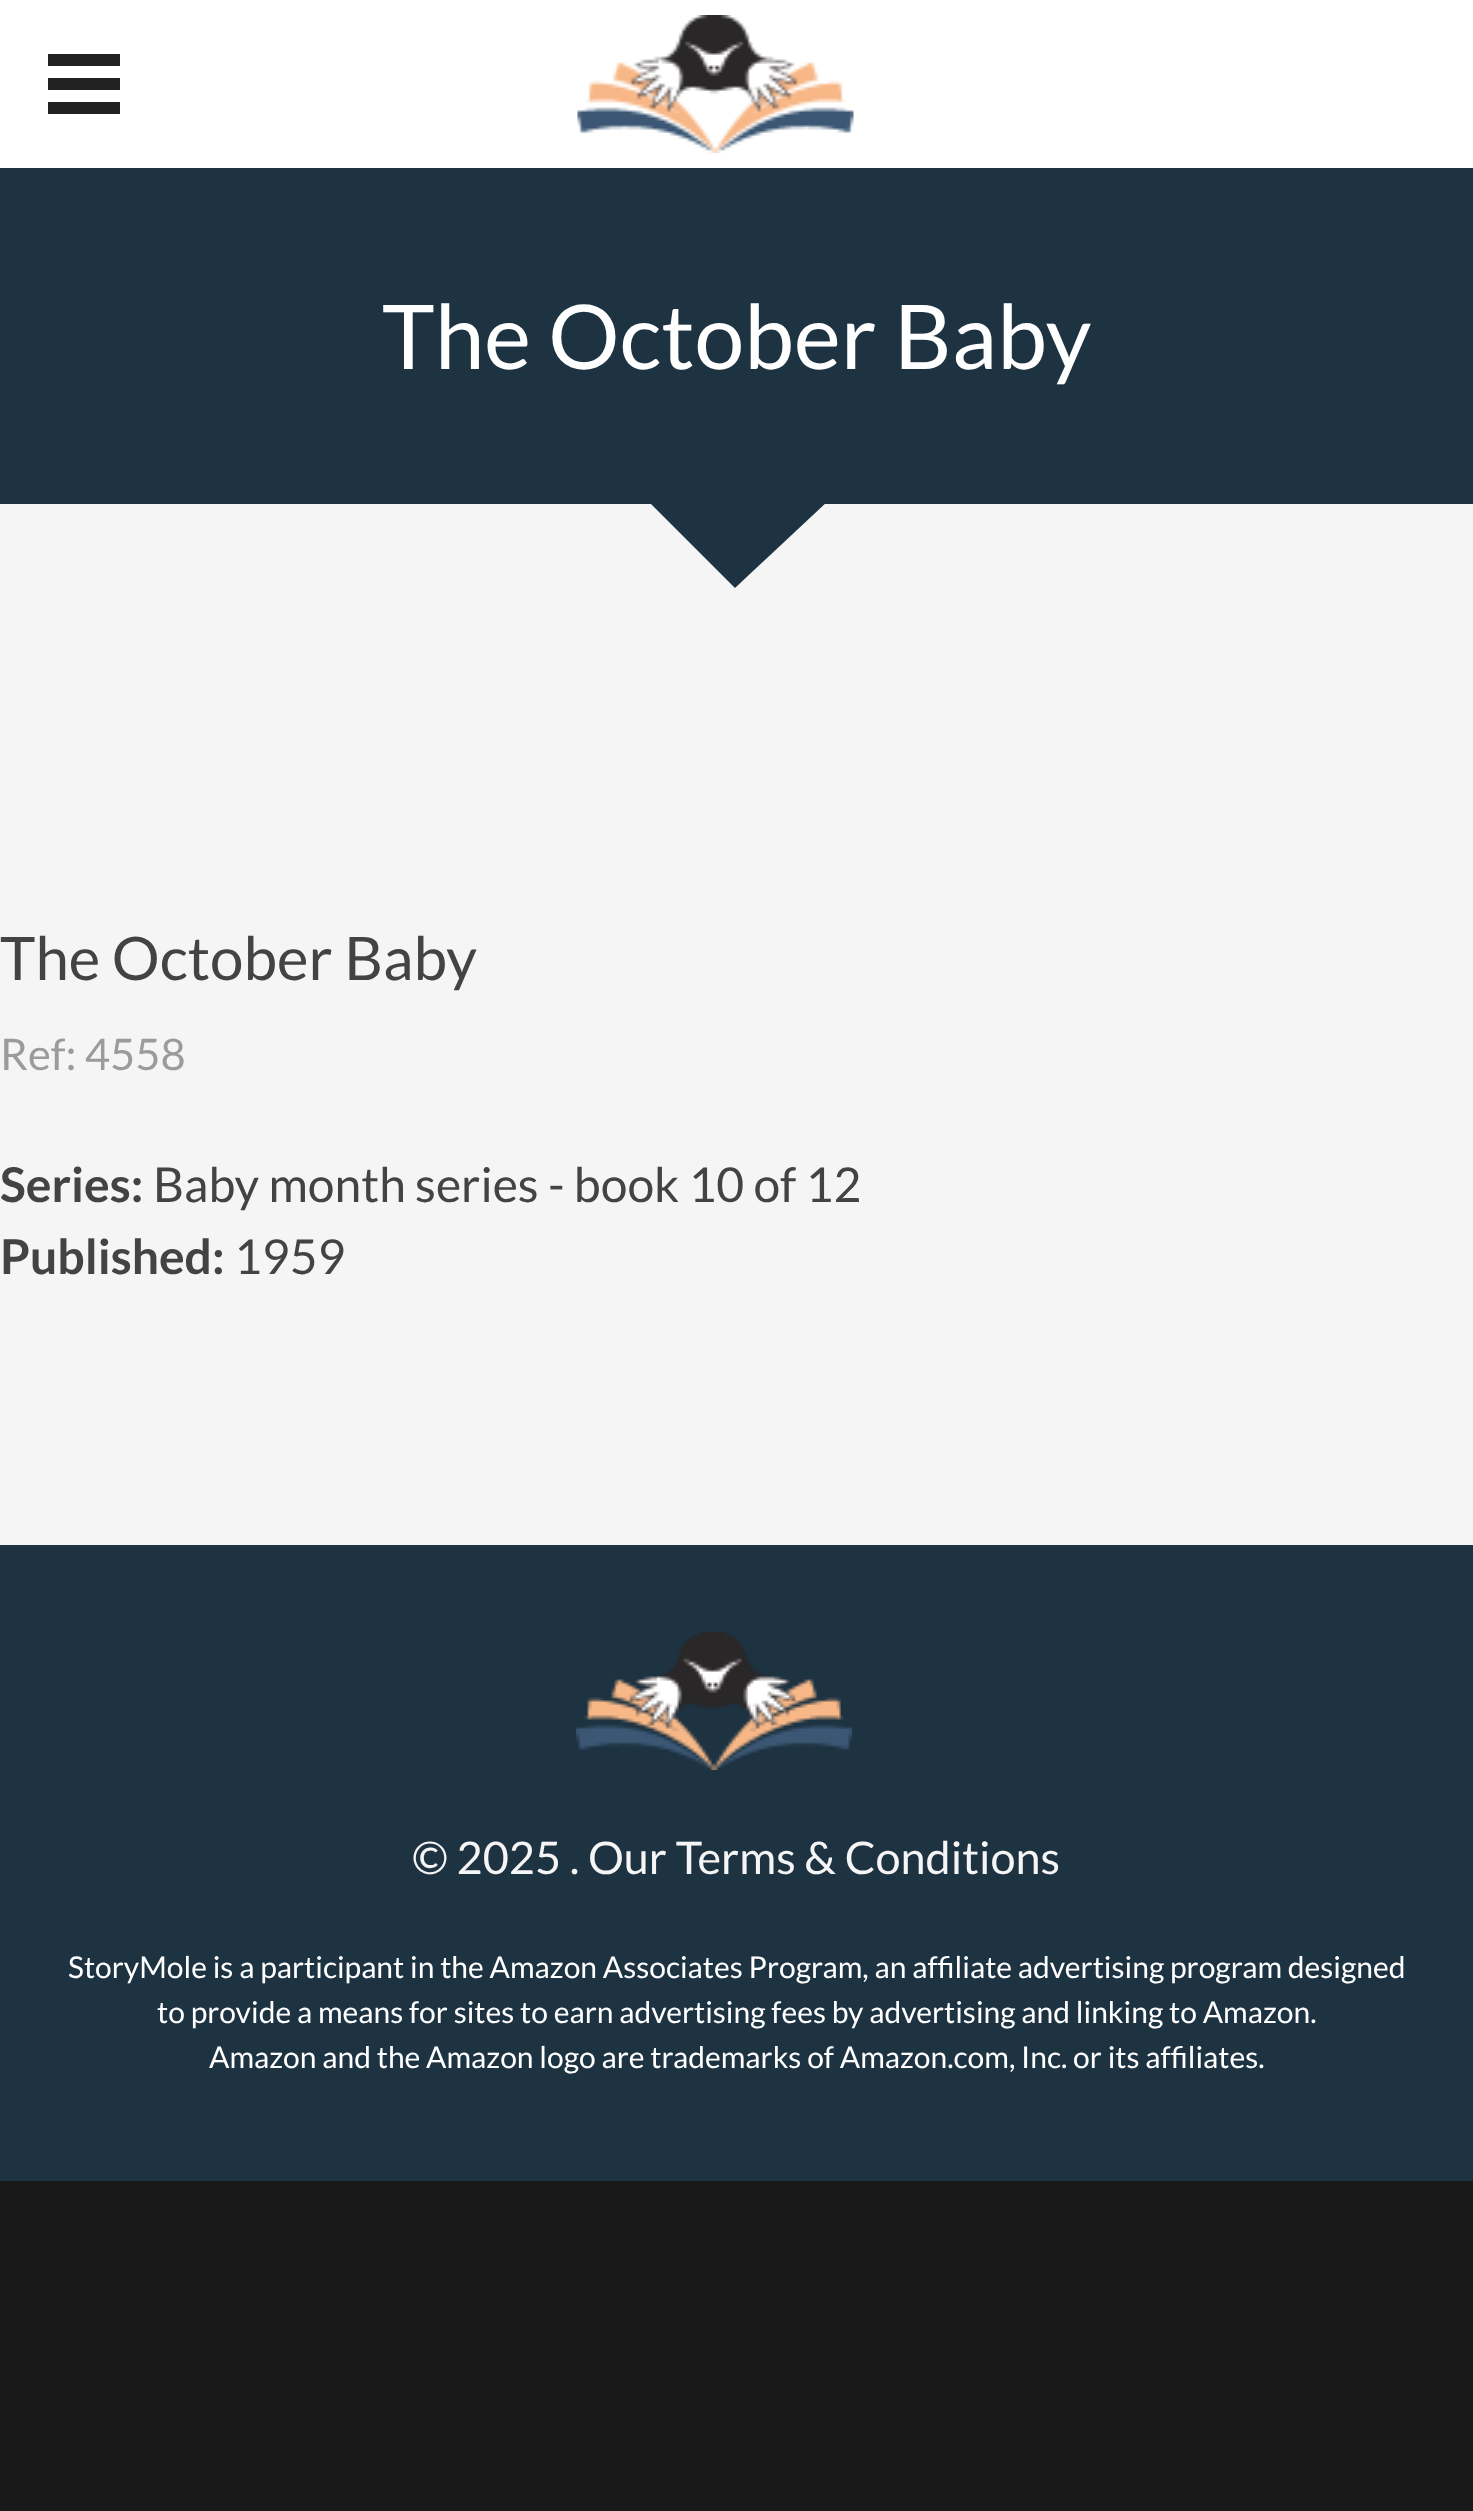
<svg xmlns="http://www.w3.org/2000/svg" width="1473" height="2511">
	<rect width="100%" height="100%" fill="#191919" />
	<rect x="0" y="0" width="1473" height="168" fill="#FFFFFF" />
	<rect x="48" y="78" width="72" height="12" fill="#212121" />
	<rect x="48" y="54" width="72" height="12" fill="#212121" />
	<rect x="48" y="102" width="72" height="12" fill="#212121" />
	<image x="577" y="15" width="277" height="138" href="assets/img1.png" />
	<rect x="0" y="168" width="1473" height="336" fill="#1E3342" />
	<text x="382" y="369" font-family="Lato" font-size="89.25" fill="#FFFFFF">The October Baby</text>
	<rect x="0" y="504" width="1473" height="1041" fill="#F5F5F5" />
	<path d="M648 501H828L735 588" fill="#1E3342" />
	<text x="0" y="980" font-family="Lato" font-size="60" fill="#434345">The October Baby</text>
	<text x="0" y="1070" font-family="Lato" font-size="43.5" fill="#9B9B9B">Ref: 4558</text>
	<text x="0" y="1202" font-family="Lato" font-size="48" font-weight="700" fill="#434345">Series:</text>
	<text x="153" y="1202" font-family="Lato" font-size="48" fill="#434345">Baby month series - book 10 of 12</text>
	<text x="0" y="1274" font-family="Lato" font-size="48" font-weight="700" fill="#434345">Published:</text>
	<text x="234" y="1274" font-family="Lato" font-size="48" fill="#434345">1959</text>
	<rect x="0" y="1545" width="1473" height="636" fill="#1E3342" />
	<image x="576" y="1632" width="276" height="138" href="assets/img2.png" />
	<text x="412" y="1874" font-family="Lato" font-size="45" fill="#F5F5F5">© 2025 . Our Terms &amp; Conditions</text>
	<g font-family="Lato" font-size="30" fill="#FFFFFF">
		<text x="68" y="1978">StoryMole is a participant in the Amazon Associates Program, an affiliate advertising program designed</text>
		<text x="157" y="2023">to provide a means for sites to earn advertising fees by advertising and linking to Amazon.</text>
		<text x="209" y="2068">Amazon and the Amazon logo are trademarks of Amazon.com, Inc. or its affiliates.</text>
	</g>
</svg>
